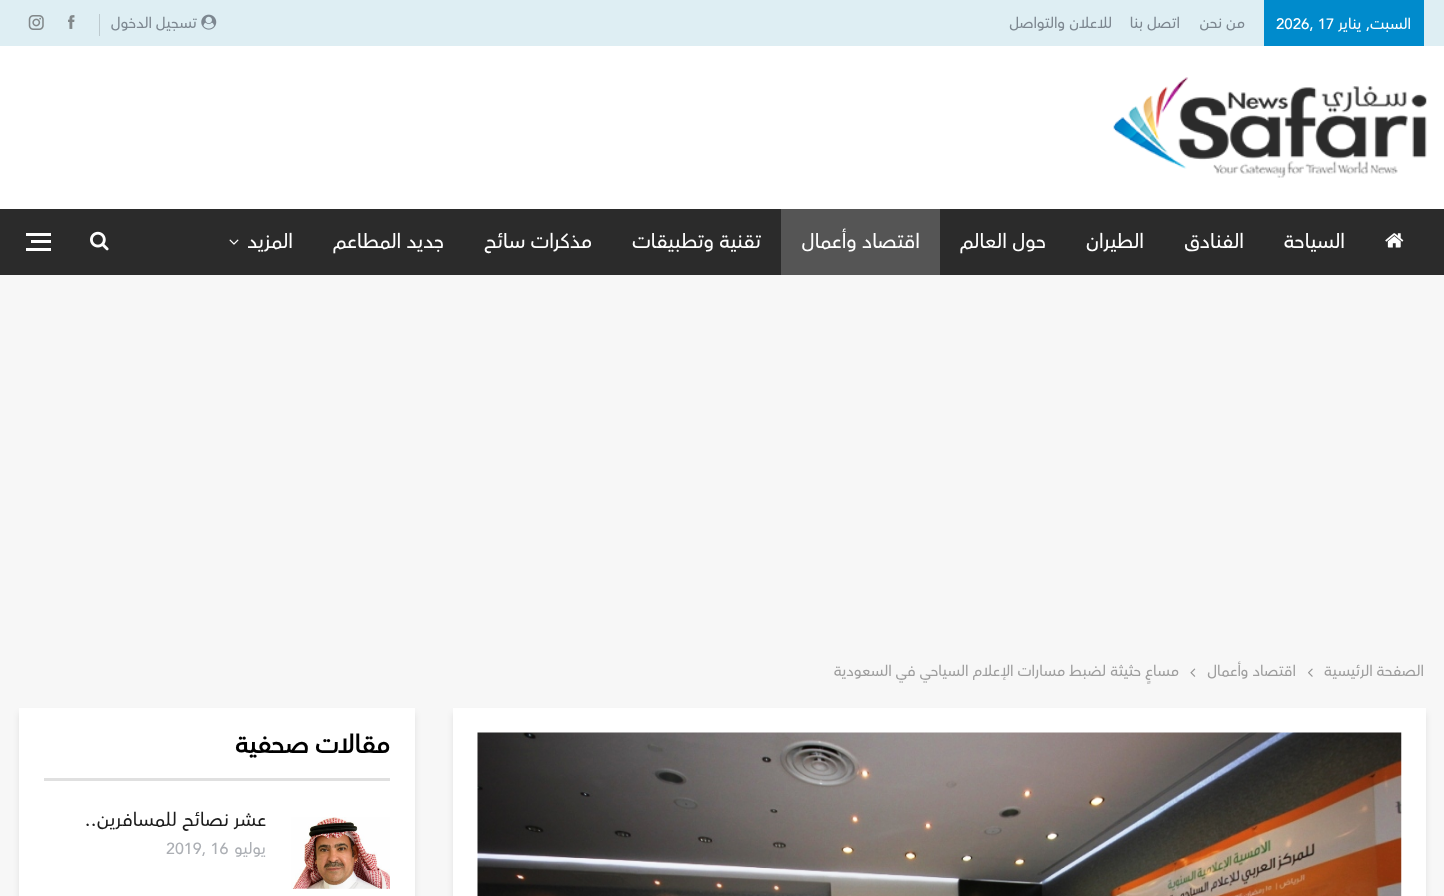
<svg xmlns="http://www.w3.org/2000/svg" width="1444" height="896">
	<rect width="100%" height="100%" fill="#F7F7F7" />
	<rect x="0" y="46" width="1444" height="163" fill="#FFFFFF" />
	<rect x="0" y="0" width="1444" height="46" fill="#DEEEF3" />
	<rect x="1264" y="0" width="160" height="46" fill="#008BCC" />
	<text x="1411" y="29" font-family="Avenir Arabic" font-size="15" font-weight="500" direction="rtl" fill="#FFFFFF">السبت, يناير</text>
	<text x="1276" y="29" font-family="Avenir Arabic" font-size="15" font-weight="500" fill="#FFFFFF">2026, 17</text>
	<g font-family="Avenir Arabic" font-size="15" font-weight="500" direction="rtl" fill="#7D8790">
		<text x="1245" y="28">من نحن</text>
		<text x="1180" y="28">اتصل بنا</text>
		<text x="1112" y="28">للاعلان والتواصل</text>
	</g>
	<image x="201" y="14" width="16" height="16" href="assets/img1.png" />
	<text x="197" y="28" font-family="Avenir Arabic" font-size="15" font-weight="500" direction="rtl" fill="#7D8790">تسجيل الدخول</text>
	<rect x="99" y="14" width="1" height="22" fill="#BDCACF" />
	<image x="68" y="15" width="7" height="14" href="assets/img2.png" />
	<image x="28" y="15" width="16" height="15" href="assets/img3.png" />
	<image x="1113" y="77" width="314" height="101" href="assets/img4.png" />
	<rect x="0" y="209" width="1444" height="66" fill="#2B2B2B" />
	<image x="1385" y="233" width="19" height="15" href="assets/img5.png" />
	<g font-family="Avenir Arabic" font-size="20" font-weight="500" direction="rtl" fill="#FFFFFF">
		<text x="1345" y="248">السياحة</text>
		<text x="1244" y="248">الفنادق</text>
		<text x="1144" y="248">الطيران</text>
		<text x="1046" y="248">حول العالم</text>
	</g>
	<rect x="781" y="209" width="159" height="66" fill="#555555" />
	<g font-family="Avenir Arabic" font-size="20" font-weight="500" direction="rtl" fill="#FFFFFF">
		<text x="920" y="248">اقتصاد وأعمال</text>
		<text x="761" y="248">تقنية وتطبيقات</text>
		<text x="592" y="248">مذكرات سائح</text>
		<text x="444" y="248">جديد المطاعم</text>
		<text x="293" y="248">المزيد</text>
	</g>
	<image x="229" y="239" width="10" height="6" href="assets/img6.png" />
	<image x="90" y="231" width="19" height="20" href="assets/img7.png" />
	<rect x="31" y="240" width="20" height="3" fill="#FFFFFF" />
	<rect x="26" y="233" width="25" height="3" fill="#FFFFFF" />
	<rect x="26" y="248" width="25" height="3" fill="#FFFFFF" />
	<text x="1424" y="676" font-family="Avenir Arabic" font-size="15" font-weight="500" direction="rtl" fill="#9E9E9E">الصفحة الرئيسية</text>
	<image x="1308" y="668" width="5" height="9" href="assets/img8.png" />
	<text x="1296" y="676" font-family="Avenir Arabic" font-size="15" font-weight="500" direction="rtl" fill="#9E9E9E">اقتصاد وأعمال</text>
	<image x="1190" y="668" width="6" height="9" href="assets/img9.png" />
	<text x="1179" y="676" font-family="Avenir Arabic" font-size="15" font-weight="500" direction="rtl" fill="#9E9E9E">مساعٍ حثيثة لضبط مسارات الإعلام السياحي في السعودية</text>
	<rect x="453" y="713" width="973" height="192" fill="#000000" fill-opacity="0.09" filter="blur(3px)" />
	<rect x="453" y="708" width="973" height="188" fill="#FFFFFF" />
	<image x="477" y="732" width="925" height="164" href="assets/img10.png" />
	<rect x="19" y="713" width="396" height="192" fill="#000000" fill-opacity="0.09" filter="blur(3px)" />
	<rect x="19" y="708" width="396" height="188" fill="#FFFFFF" />
	<text x="390" y="753" font-family="Avenir Arabic" font-size="25" font-weight="700" direction="rtl" fill="#000000">مقالات صحفية</text>
	<rect x="44" y="778" width="346" height="3" fill="#E0E0E0" />
	<image x="291" y="817" width="99" height="72" href="assets/img11.png" />
	<text x="266" y="826" font-family="Avenir Arabic" font-size="18.75" font-weight="500" direction="rtl" fill="#1D1D1D">عشر نصائح للمسافرين..</text>
	<text x="266" y="854" font-family="Avenir Arabic" font-size="16" font-weight="500" direction="rtl" fill="#ACAFB4">يوليو</text>
	<text x="166" y="854" font-family="Avenir Arabic" font-size="16" font-weight="500" fill="#ACAFB4">2019, 16</text>
</svg>
